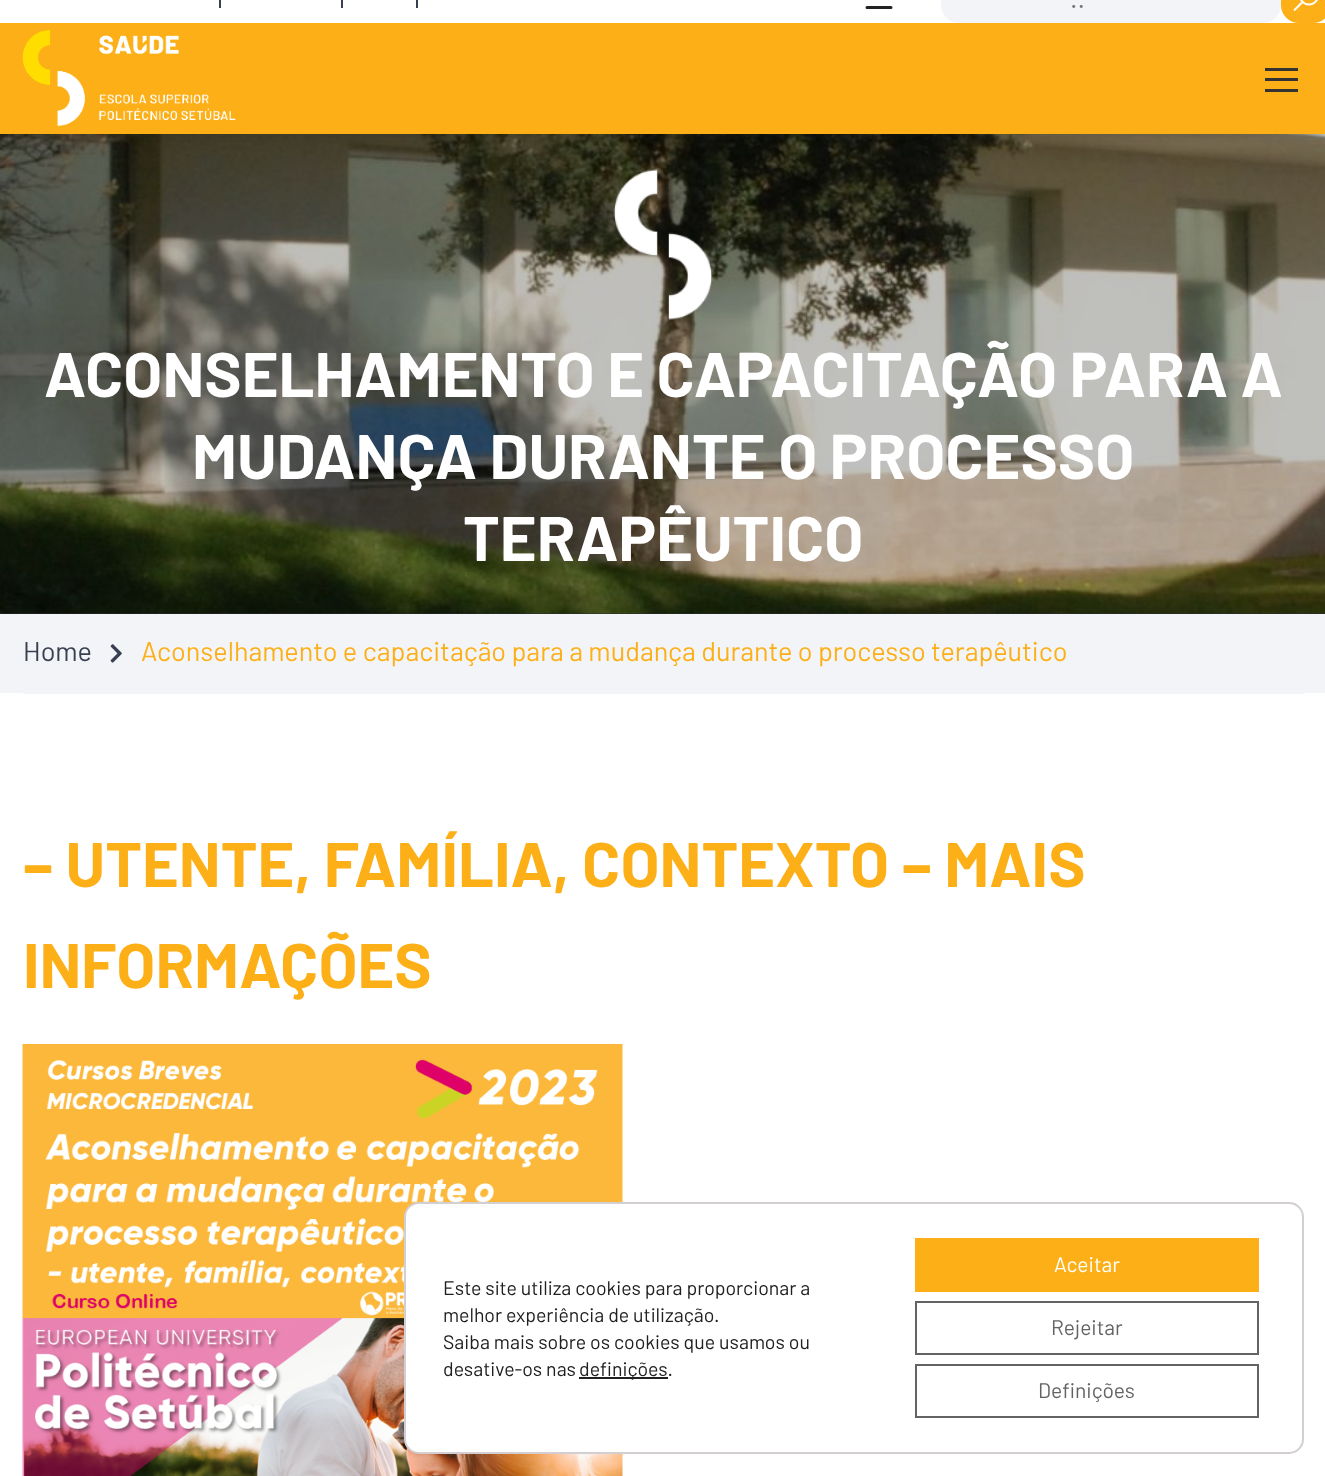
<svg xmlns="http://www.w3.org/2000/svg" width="1325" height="1476">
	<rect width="100%" height="100%" fill="#FFFFFF" />
	<rect x="0" y="613" width="1325" height="1" fill="#2A2E32" />
	<image x="0" y="134" width="1325" height="480" href="assets/img3.png" />
	<rect x="3" y="27" width="1320" height="105" fill="#2A2A2A" fill-opacity="0.4" filter="blur(4px)" />
	<rect x="0" y="19" width="1325" height="4" fill="#FFFFFF" />
	<rect x="219" y="0" width="2" height="8" fill="#383F51" />
	<rect x="341" y="0" width="2" height="8" fill="#383F51" />
	<rect x="416" y="0" width="2" height="8" fill="#383F51" />
	<path d="M867-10.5H891M867-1.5H891M867 7.5H891" fill="none" stroke="#222222" stroke-width="3" stroke-linecap="round" stroke-linejoin="round" />
	<rect x="941" y="-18" width="340" height="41" rx="18" fill="#F3F4F7" />
	<text x="1070" y="8" font-family="Barlow" font-size="27" fill="#757575">..</text>
	<rect x="1281" y="-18" width="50" height="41" rx="18" fill="#FCAF17" />
	<image x="1293" y="0" width="25" height="12" href="assets/img1.png" />
	<rect x="0" y="23" width="1325" height="111" fill="#FCAF17" />
	<image x="22" y="30" width="214" height="96" href="assets/img2.png" />
	<rect x="1265" y="68" width="33" height="3" fill="#333333" />
	<rect x="1265" y="78" width="33" height="3" fill="#333333" />
	<rect x="1265" y="89" width="33" height="3" fill="#333333" />
	<image x="613" y="169" width="100" height="151" href="assets/img4.png" />
	<g font-family="Barlow" font-size="63" font-weight="700" fill="#FFFFFF">
		<text x="44" y="397">ACONSELHAMENTO E CAPACITAÇÃO PARA A</text>
		<text x="192" y="479">MUDANÇA DURANTE O PROCESSO</text>
		<text x="463" y="561">TERAPÊUTICO</text>
	</g>
	<rect x="0" y="614" width="1325" height="79" fill="#F3F4F7" />
	<rect x="23" y="693" width="1281" height="1" fill="#F3F4F7" />
	<text x="23" y="661" font-family="Barlow" font-size="27" fill="#383F51">Home</text>
	<image x="110" y="644" width="12" height="19" href="assets/img5.png" />
	<text x="141" y="661" font-family="Barlow" font-size="27" fill="#FCAF17">Aconselhamento e capacitação para a mudança durante o processo terapêutico</text>
	<g font-family="Barlow" font-size="63" font-weight="700" fill="#FCAF17">
		<text x="23" y="887">– UTENTE, FAMÍLIA, CONTEXTO – MAIS</text>
		<text x="23" y="988">INFORMAÇÕES</text>
	</g>
	<image x="22" y="1044" width="601" height="432" href="assets/img6.png" />
	<rect x="405" y="1203" width="898" height="250" rx="14" fill="#FFFFFF" stroke="#D3CED2" stroke-width="2" />
	<g font-family="Barlow" font-size="19.5" fill="#202020">
		<text x="443" y="1295">Este site utiliza cookies para proporcionar a</text>
		<text x="443" y="1322">melhor experiência de utilização.</text>
		<text x="443" y="1349">Saiba mais sobre os cookies que usamos ou</text>
		<text x="443" y="1376">desative-os nas</text>
	</g>
	<rect x="579" y="1377" width="89" height="2" fill="#202020" />
	<text x="579" y="1376" font-family="Barlow" font-size="19.5" fill="#202020">definições.</text>
	<rect x="915" y="1238" width="344" height="54" fill="#FCAF17" />
	<text x="1054" y="1272" font-family="Barlow" font-size="21" fill="#FFFFFF">Aceitar</text>
	<rect x="916" y="1302" width="342" height="52" fill="none" stroke="#636363" stroke-width="2" />
	<text x="1051" y="1335" font-family="Barlow" font-size="21" fill="#636363">Rejeitar</text>
	<rect x="916" y="1365" width="342" height="52" fill="none" stroke="#636363" stroke-width="2" />
	<text x="1038" y="1398" font-family="Barlow" font-size="21" fill="#636363">Definições</text>
</svg>
